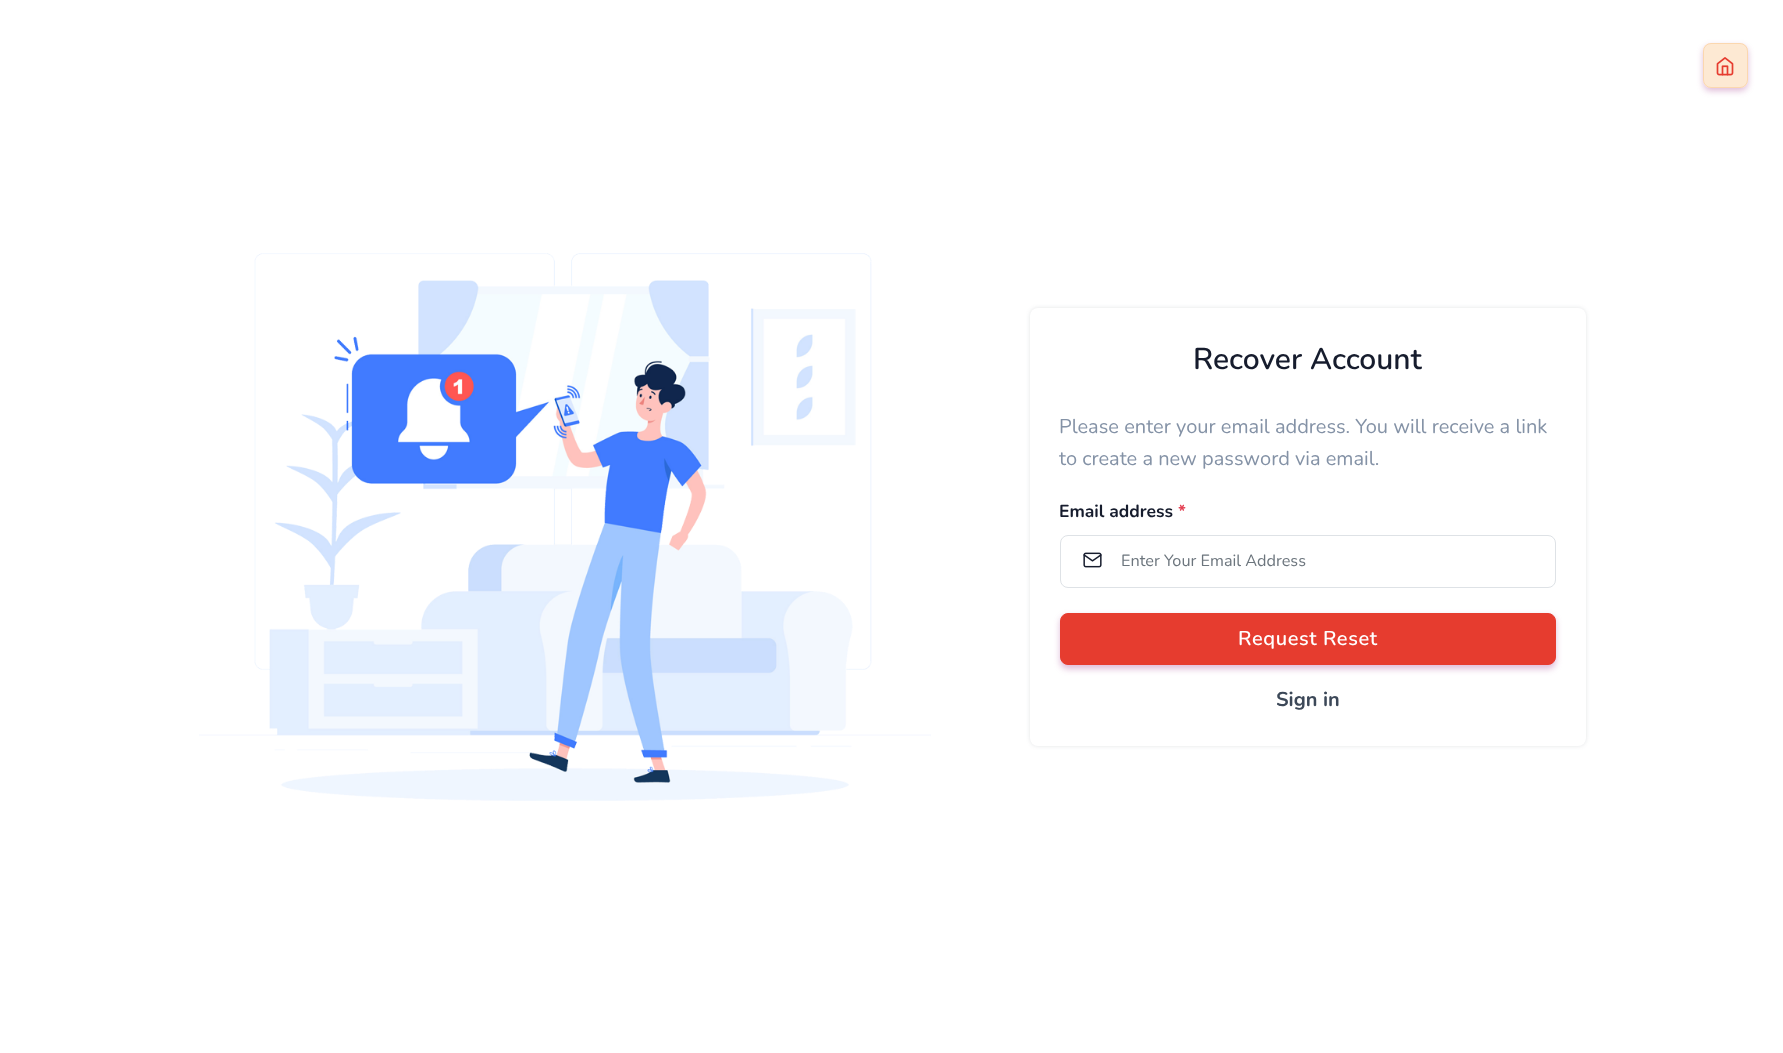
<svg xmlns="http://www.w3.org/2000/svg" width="1783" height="1053">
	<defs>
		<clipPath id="clip1"><path d="M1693 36H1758V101H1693ZM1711 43H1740C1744.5 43 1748 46.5 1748 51V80C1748 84.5 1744.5 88 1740 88H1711C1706.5 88 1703 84.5 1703 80V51C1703 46.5 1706.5 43 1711 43Z" clip-rule="evenodd" /></clipPath>
	</defs>
	<rect width="100%" height="100%" fill="#FFFFFF" />
	<g clip-path="url(#clip1)">
		<rect x="1703" y="46" width="45" height="45" rx="8" fill="#982481" fill-opacity="0.3" filter="blur(3px)" />
	</g>
	<rect x="1703" y="43" width="45" height="45" rx="8" fill="#F78F22" fill-opacity="0.2" />
	<rect x="1703.5" y="43.5" width="44" height="44" rx="7.5" fill="none" stroke="#F78F22" stroke-opacity="0.2" />
	<image x="1716" y="57" width="18" height="19" href="assets/img1.png" />
	<image x="199" y="253" width="732" height="548" href="assets/img2.png" />
	<rect x="1030" y="308" width="556" height="438" rx="8" fill="#3C4858" fill-opacity="0.15" filter="blur(2px)" />
	<rect x="1030" y="308" width="556" height="438" rx="8" fill="#FFFFFF" />
	<text x="1193" y="369" font-family="Nunito" font-size="30" font-weight="600" fill="#161C2D">Recover Account</text>
	<g font-family="Nunito" font-size="20" fill="#8492A6">
		<text x="1059" y="433">Please enter your email address. You will receive a link</text>
		<text x="1059" y="465">to create a new password via email.</text>
	</g>
	<text x="1059" y="517" font-family="Nunito" font-size="17.5" font-weight="700" fill="#161C2D">Email address</text>
	<text x="1178" y="517" font-family="Nunito" font-size="17.5" font-weight="700" fill="#E43F52">*</text>
	<rect x="1060.5" y="535.5" width="495" height="52" rx="7.5" fill="none" stroke="#DEE2E6" />
	<image x="1083" y="552" width="19" height="16" href="assets/img3.png" />
	<text x="1121" y="566" font-family="Nunito" font-size="16.25" fill="#6C757D">Enter Your Email Address</text>
	<rect x="1060" y="616" width="496" height="53" rx="8" fill="#982481" fill-opacity="0.3" filter="blur(3px)" />
	<rect x="1060.5" y="613.5" width="495" height="51" rx="7.5" fill="#E63C2F" stroke="#E63C2F" />
	<text x="1238" y="645" font-family="Nunito" font-size="20" font-weight="600" letter-spacing="0.6" fill="#FFFFFF">Request Reset</text>
	<text x="1276" y="706" font-family="Nunito" font-size="20" font-weight="700" fill="#3C4858">Sign in</text>
</svg>
